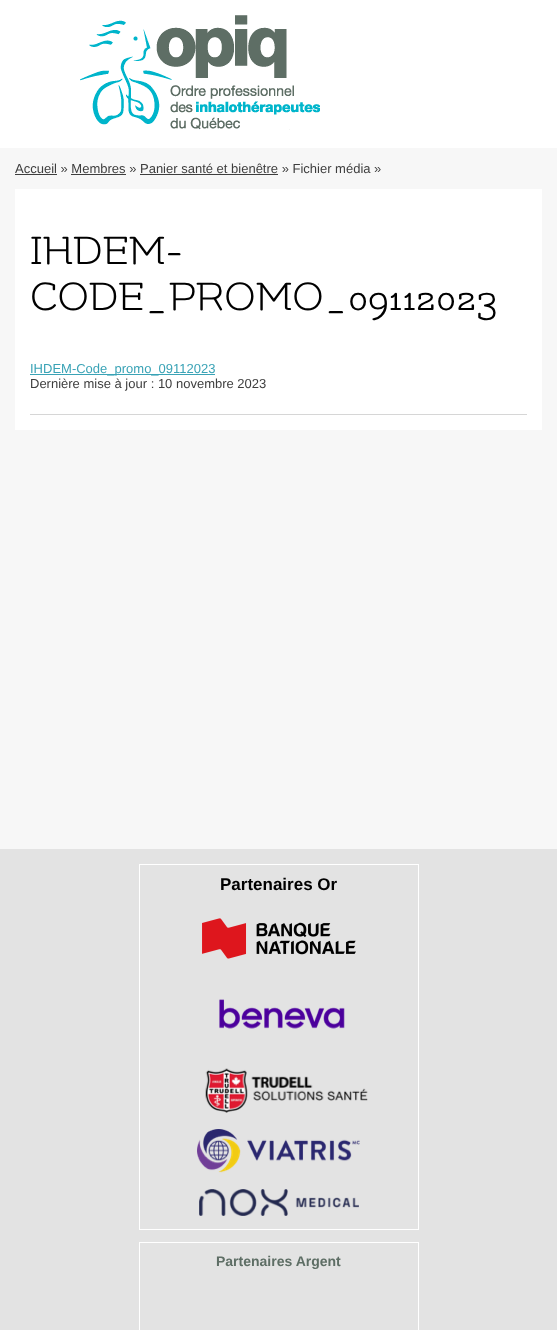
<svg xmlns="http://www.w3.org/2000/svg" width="557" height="1330">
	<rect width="100%" height="100%" fill="#FFFFFF" />
	<image x="80" y="15" width="240" height="115" href="assets/img1.png" />
	<rect x="0" y="148" width="557" height="701" fill="#F7F7F7" />
	<text x="15" y="173" font-family="Liberation Sans" font-size="13" fill="#3E3E3E">Accueil » Membres » Panier santé et bienêtre » Fichier média »</text>
	<rect x="15" y="174" width="42" height="1" fill="#3E3E3E" />
	<rect x="71" y="174" width="55" height="1" fill="#3E3E3E" />
	<rect x="140" y="174" width="138" height="1" fill="#3E3E3E" />
	<rect x="15" y="189" width="527" height="241" fill="#FFFFFF" />
	<rect x="30" y="414" width="497" height="1" fill="#D6D6D6" />
	<g font-family="Flamenco" font-size="45" fill="#000000">
		<text x="30" y="264">IHDEM-</text>
		<text x="30" y="310">CODE_PROMO_09112023</text>
	</g>
	<rect x="30" y="374" width="185" height="1" fill="#3AA3B6" />
	<text x="30" y="373" font-family="Liberation Sans" font-size="13" fill="#3AA3B6">IHDEM-Code_promo_09112023</text>
	<text x="30" y="388" font-family="Liberation Sans" font-size="13" fill="#3E3E3E">Dernière mise à jour : 10 novembre 2023</text>
	<rect x="0" y="849" width="557" height="481" fill="#E3E3E3" />
	<rect x="139.5" y="864.5" width="279" height="365" fill="none" stroke="#FFFFFF" />
	<text x="220" y="890" font-family="Liberation Sans" font-size="17" font-weight="700" fill="#000000">Partenaires Or</text>
	<image x="202" y="918" width="154" height="41" href="assets/img2.png" />
	<image x="219" y="999" width="126" height="30" href="assets/img3.png" />
	<image x="205" y="1068" width="163" height="45" href="assets/img4.png" />
	<image x="197" y="1129" width="163" height="44" href="assets/img5.png" />
	<image x="199" y="1189" width="160" height="27" href="assets/img6.png" />
	<rect x="139.5" y="1242.5" width="279" height="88" fill="none" stroke="#FFFFFF" />
	<text x="216" y="1266" font-family="Liberation Sans" font-size="14" font-weight="700" fill="#5E6E65">Partenaires Argent</text>
</svg>
